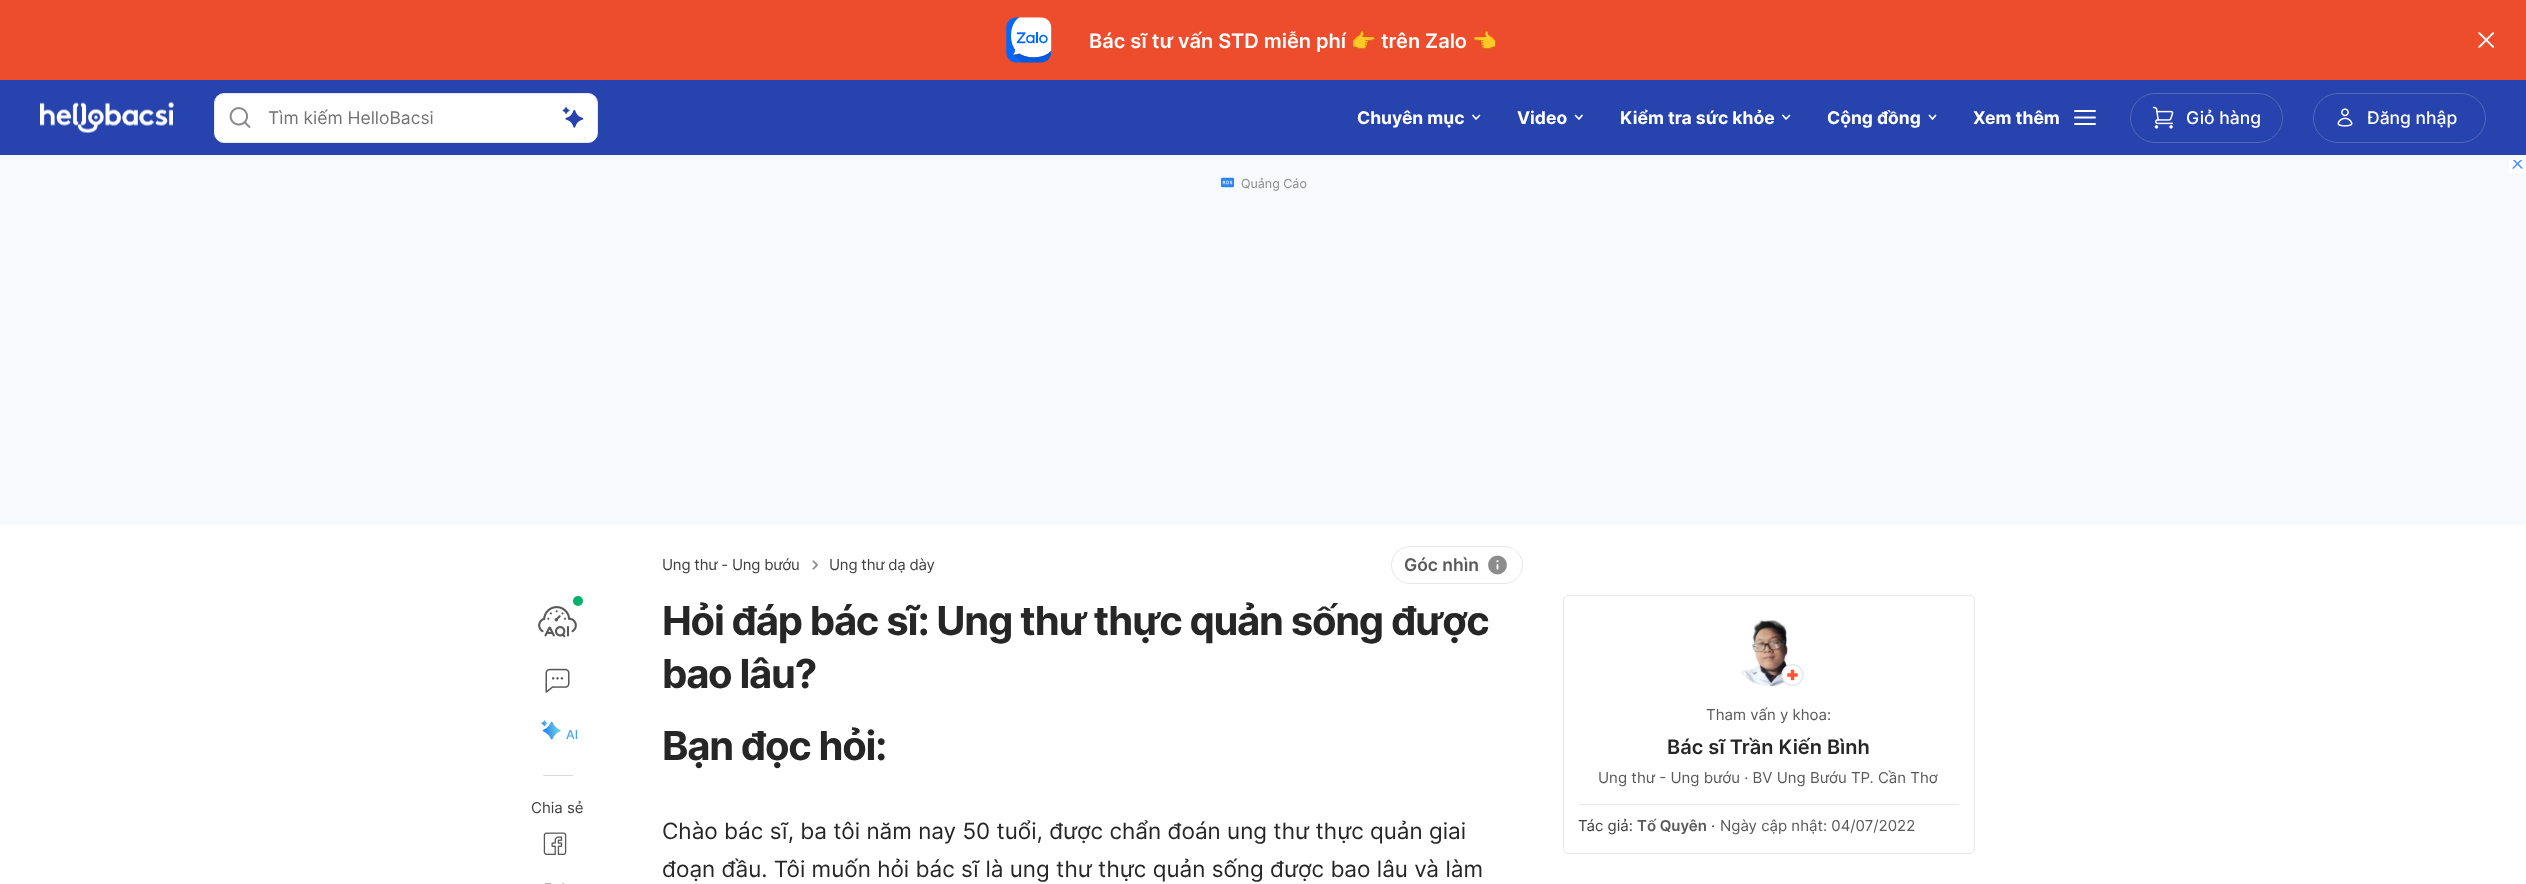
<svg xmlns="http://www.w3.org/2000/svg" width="2526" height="884">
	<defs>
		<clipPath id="clip1"><rect x="2368" y="94" width="90" height="47" /></clipPath>
	</defs>
	<rect width="100%" height="100%" fill="#FFFFFF" />
	<rect x="0" y="80" width="2526" height="75" fill="#2743AD" />
	<rect x="0" y="0" width="2526" height="80" fill="#EE4D2D" />
	<image x="1006" y="17" width="46" height="46" href="assets/img1.png" />
	<text x="1089" y="48" font-family="Inter" font-size="20" font-weight="600" fill="#FFFFFF">Bác sĩ tư vấn STD miễn phí</text>
	<text x="1351" y="48" font-family="Noto Color Emoji" font-size="20" font-weight="700" fill="#FFFFFF">👉</text>
	<text x="1381" y="48" font-family="Inter" font-size="20" font-weight="600" fill="#FFFFFF">trên Zalo</text>
	<text x="1472" y="48" font-family="Noto Color Emoji" font-size="20" font-weight="700" fill="#FFFFFF">👈</text>
	<image x="2478" y="32" width="17" height="16" href="assets/img2.png" />
	<image x="40" y="102" width="134" height="31" href="assets/img3.png" />
	<rect x="214.5" y="93.5" width="383" height="49" rx="9.5" fill="#FFFFFF" stroke="#E4E8EC" />
	<image x="229" y="107" width="22" height="21" href="assets/img4.png" />
	<text x="268" y="124" font-family="Inter" font-size="17.5" fill="#737373">Tìm kiếm HelloBacsi</text>
	<image x="562" y="107" width="22" height="21" href="assets/img5.png" />
	<text x="1357" y="124" font-family="Inter" font-size="17.5" font-weight="700" fill="#FFFFFF">Chuyên mục</text>
	<path d="M1479.5 115.5L1476 119L1473 115.5" fill="none" stroke="#FFFFFF" stroke-width="1.7" stroke-linecap="round" stroke-linejoin="round" />
	<text x="1517" y="124" font-family="Inter" font-size="17.5" font-weight="700" fill="#FFFFFF">Video</text>
	<path d="M1582 115.5L1579 119L1575.5 115.5" fill="none" stroke="#FFFFFF" stroke-width="1.7" stroke-linecap="round" stroke-linejoin="round" />
	<text x="1620" y="124" font-family="Inter" font-size="17.5" font-weight="700" fill="#FFFFFF">Kiểm tra sức khỏe</text>
	<path d="M1789.5 115.5L1786 119L1783 115.5" fill="none" stroke="#FFFFFF" stroke-width="1.7" stroke-linecap="round" stroke-linejoin="round" />
	<text x="1827" y="124" font-family="Inter" font-size="17.5" font-weight="700" fill="#FFFFFF">Cộng đồng</text>
	<path d="M1935.5 115.5L1932.5 119L1929.5 115.5" fill="none" stroke="#FFFFFF" stroke-width="1.7" stroke-linecap="round" stroke-linejoin="round" />
	<text x="1973" y="124" font-family="Inter" font-size="17.5" font-weight="700" fill="#FFFFFF">Xem thêm</text>
	<path d="M2075 117.5H2095M2075 111H2095M2075 124H2095" fill="none" stroke="#FFFFFF" stroke-width="1.9" stroke-linecap="round" stroke-linejoin="round" />
	<rect x="2130.5" y="93.5" width="152" height="49" rx="24.5" fill="none" stroke="#5269BD" />
	<image x="2152" y="106" width="22" height="23" href="assets/img6.png" />
	<text x="2186" y="124" font-family="Inter" font-size="17.5" font-weight="500" fill="#FFFFFF">Giỏ hàng</text>
	<rect x="2313.5" y="93.5" width="172" height="49" rx="24.5" fill="none" stroke="#5269BD" />
	<image x="2337" y="108" width="16" height="19" href="assets/img7.png" />
	<g clip-path="url(#clip1)">
		<text x="2367" y="124" font-family="Inter" font-size="17.5" font-weight="500" fill="#FFFFFF">Đăng nhập</text>
	</g>
	<rect x="0" y="155" width="2526" height="5" fill="#F7F9FC" />
	<rect x="0" y="160" width="2526" height="365" fill="#F8F9FC" />
	<rect x="2509" y="160" width="17" height="13" fill="#FFFFFF" />
	<image x="2512" y="160" width="11" height="9" href="assets/img8.png" />
	<image x="1221" y="177" width="13" height="11" href="assets/img9.png" />
	<text x="1241" y="188" font-family="Inter" font-size="12.5" fill="#8C8C8C">Quảng Cáo</text>
	<text x="662" y="570" font-family="Inter" font-size="15" letter-spacing="-0.25" fill="#404040">Ung thư - Ung bướu</text>
	<image x="812" y="560" width="6" height="10" href="assets/img10.png" />
	<text x="829" y="570" font-family="Inter" font-size="15" letter-spacing="-0.25" fill="#404040">Ung thư dạ dày</text>
	<rect x="1391.5" y="546.5" width="131" height="37" rx="18.5" fill="none" stroke="#E4E8EC" />
	<text x="1404" y="571" font-family="Inter" font-size="17.5" font-weight="600" fill="#595959">Góc nhìn</text>
	<image x="1488" y="555" width="19" height="20" href="assets/img11.png" />
	<circle cx="578" cy="601" r="5" fill="#00B16A" />
	<image x="538" y="606" width="39" height="32" href="assets/img12.png" />
	<image x="545" y="668" width="25" height="25" href="assets/img13.png" />
	<image x="541" y="720" width="20" height="20" href="assets/img14.png" />
	<text x="566" y="739" font-family="Inter" font-size="12.5" font-weight="500" fill="#49A8EA">AI</text>
	<rect x="543" y="775" width="30" height="1" fill="#D9D9D9" />
	<text x="531" y="813" font-family="Inter" font-size="15" fill="#404040">Chia sẻ</text>
	<image x="543" y="832" width="24" height="23" href="assets/img15.png" />
	<image x="545" y="883" width="20" height="1" href="assets/img16.png" />
	<g font-family="Inter" font-size="40" font-weight="700" letter-spacing="-1.25" fill="#262626">
		<text x="662" y="635">Hỏi đáp bác sĩ: Ung thư thực quản sống được</text>
		<text x="662" y="688">bao lâu?</text>
		<text x="662" y="760">Bạn đọc hỏi:</text>
	</g>
	<g font-family="Inter" font-size="22.5" fill="#262626">
		<text x="662" y="839">Chào bác sĩ, ba tôi năm nay 50 tuổi, được chẩn đoán ung thư thực quản giai</text>
		<text x="662" y="877">đoạn đầu. Tôi muốn hỏi bác sĩ là ung thư thực quản sống được bao lâu và làm</text>
	</g>
	<rect x="1563.5" y="595.5" width="411" height="258" rx="4.5" fill="none" stroke="#E4E8EC" />
	<image x="1740" y="619" width="59" height="67" href="assets/img17.png" />
	<image x="1781" y="664" width="23" height="22" href="assets/img18.png" />
	<text x="1706" y="720" font-family="Inter" font-size="15" fill="#595959">Tham vấn y khoa:</text>
	<text x="1667" y="754" font-family="Inter" font-size="20" font-weight="600" fill="#262626">Bác sĩ Trần Kiến Bình</text>
	<text x="1598" y="783" font-family="Inter" font-size="15" fill="#595959">Ung thư - Ung bướu · BV Ung Bướu TP. Cần Thơ</text>
	<rect x="1579" y="804" width="380" height="1" fill="#E4E8EC" />
	<text x="1578" y="831" font-family="Inter" font-size="15" fill="#404040">Tác giả:</text>
	<text x="1637" y="831" font-family="Inter" font-size="15" font-weight="600" fill="#595959">Tố Quyên</text>
	<text x="1711" y="831" font-family="Inter" font-size="15" fill="#404040">·</text>
	<text x="1720" y="831" font-family="Inter" font-size="15" fill="#595959">Ngày cập nhật: 04/07/2022</text>
</svg>
